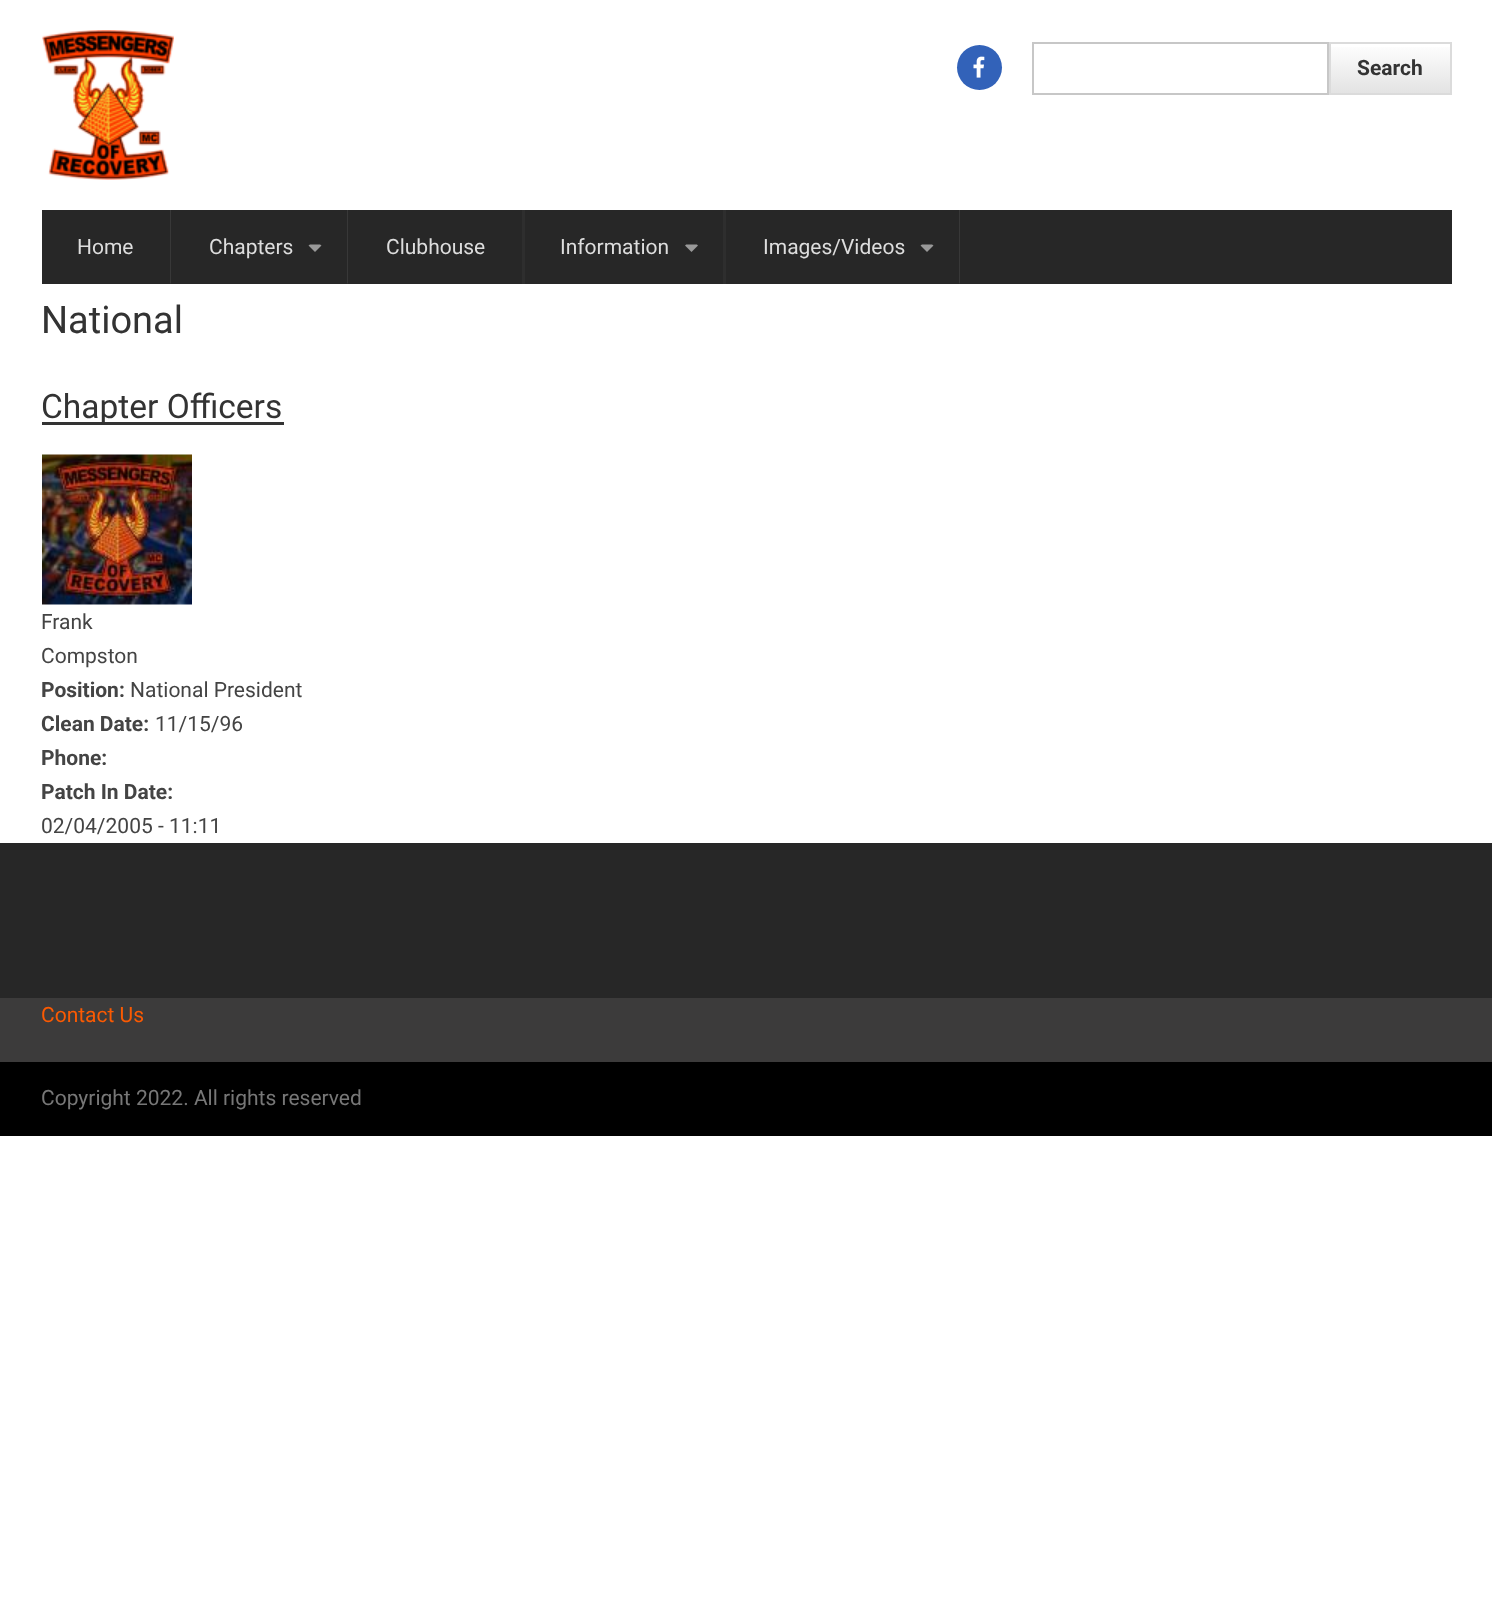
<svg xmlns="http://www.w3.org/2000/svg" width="1492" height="1610">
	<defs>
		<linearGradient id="g1" gradientUnits="userSpaceOnUse" x1="1391" y1="43" x2="1391" y2="93"><stop offset="0" stop-color="#FFFFFF" /><stop offset="1" stop-color="#E3E3E3" /></linearGradient>
	</defs>
	<rect width="100%" height="100%" fill="#FFFFFF" />
	<image x="42" y="30" width="132" height="150" href="assets/img1.png" />
	<circle cx="979.5" cy="67.5" r="22.5" fill="#3262B9" />
	<image x="973" y="56" width="12" height="22" href="assets/img2.png" />
	<rect x="1033" y="43" width="295" height="51" fill="none" stroke="#C7C7C7" stroke-width="2" />
	<rect x="1331" y="47" width="119" height="46" fill="url(#g1)" />
	<rect x="1330" y="43" width="121" height="51" fill="none" stroke="#DBDBDB" stroke-width="2" />
	<text x="1357" y="75" font-family="Roboto" font-size="21" font-weight="700" fill="#333333">Search</text>
	<rect x="42" y="210" width="1410" height="74" fill="#272727" />
	<image x="170" y="210" width="1" height="74" href="assets/img3.png" />
	<text x="77" y="254" font-family="Roboto" font-size="21" fill="#DDDDDD">Home</text>
	<image x="347" y="210" width="1" height="74" href="assets/img3.png" />
	<text x="209" y="254" font-family="Roboto" font-size="21" fill="#DDDDDD">Chapters</text>
	<path d="M310.5 244.5C310 244.5 309 245 308.5 245.5L315 252L321.5 245.5C321 245 320 244.5 319.5 244.5Z" fill="#999999" />
	<rect x="522" y="210" width="3" height="74" fill="#2E2E2E" />
	<text x="386" y="254" font-family="Roboto" font-size="21" fill="#DDDDDD">Clubhouse</text>
	<rect x="723" y="210" width="3" height="74" fill="#2E2E2E" />
	<text x="560" y="254" font-family="Roboto" font-size="21" fill="#DDDDDD">Information</text>
	<path d="M687 244.5C686 244.5 685.5 245 685 245.5L691.5 252L698 245.5C697.5 245 697 244.5 696 244.5Z" fill="#999999" />
	<image x="959" y="210" width="1" height="74" href="assets/img3.png" />
	<text x="763" y="254" font-family="Roboto" font-size="21" fill="#DDDDDD">Images/Videos</text>
	<path d="M922.5 244.5C922 244.5 921 245 920.5 245.5L927 252L933.5 245.5C933 245 932 244.5 931.5 244.5Z" fill="#999999" />
	<text x="41" y="333" font-family="Roboto" font-size="38" fill="#333333">National</text>
	<rect x="42" y="422" width="242" height="3" fill="#333333" />
	<text x="41" y="418" font-family="Roboto" font-size="33.5" fill="#333333">Chapter Officers</text>
	<image x="42" y="454" width="150" height="151" href="assets/img4.png" />
	<g font-family="Roboto" font-size="21" fill="#444444">
		<text x="41" y="629">Frank</text>
		<text x="41" y="663">Compston</text>
	</g>
	<text x="41" y="697" font-family="Roboto" font-size="21" font-weight="700" fill="#444444">Position:</text>
	<text x="130" y="697" font-family="Roboto" font-size="21" fill="#444444">National President</text>
	<text x="41" y="731" font-family="Roboto" font-size="21" font-weight="700" fill="#444444">Clean Date:</text>
	<text x="155" y="731" font-family="Roboto" font-size="21" fill="#444444">11/15/96</text>
	<g font-family="Roboto" font-size="21" font-weight="700" fill="#444444">
		<text x="41" y="765">Phone:</text>
		<text x="41" y="799">Patch In Date:</text>
	</g>
	<text x="41" y="833" font-family="Roboto" font-size="21" fill="#444444">02/04/2005 - 11:11</text>
	<rect x="0" y="843" width="1492" height="155" fill="#272727" />
	<rect x="0" y="998" width="1492" height="64" fill="#3C3B3B" />
	<text x="41" y="1022" font-family="Roboto" font-size="21" fill="#FB5A02">Contact Us</text>
	<rect x="0" y="1062" width="1492" height="74" fill="#000000" />
	<text x="41" y="1105" font-family="Roboto" font-size="21" fill="#777777">Copyright 2022. All rights reserved</text>
</svg>
